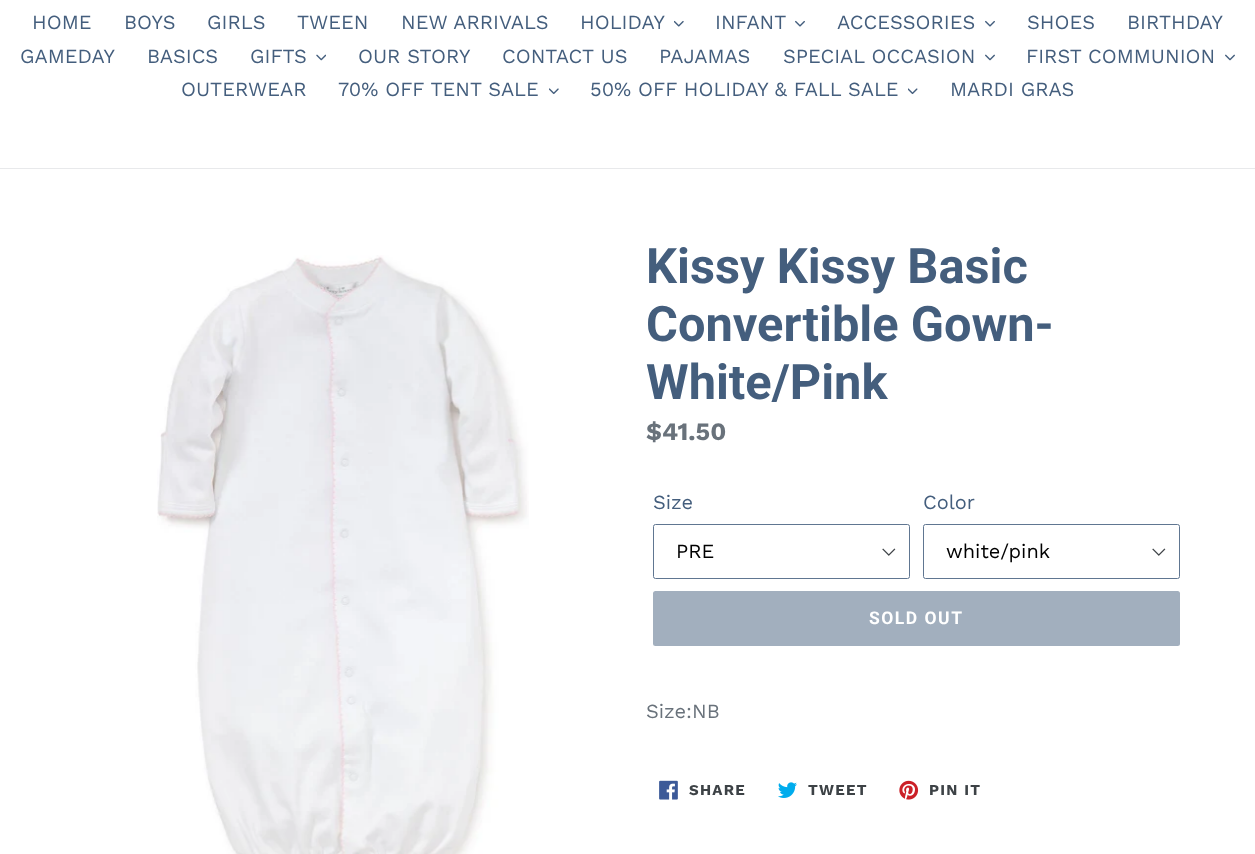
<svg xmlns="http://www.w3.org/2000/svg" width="1255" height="854">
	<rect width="100%" height="100%" fill="#FFFFFF" />
	<rect x="0" y="168" width="1255" height="1" fill="#E8E9EB" />
	<g font-family="Work Sans" font-size="20" fill="#445E7D">
		<text x="32" y="29">HOME</text>
		<text x="124" y="29">BOYS</text>
		<text x="207" y="29">GIRLS</text>
		<text x="297" y="29">TWEEN</text>
		<text x="401" y="29">NEW ARRIVALS</text>
		<text x="580" y="29">HOLIDAY</text>
	</g>
	<image x="674" y="20" width="10" height="7" href="assets/img1.png" />
	<text x="715" y="29" font-family="Work Sans" font-size="20" fill="#445E7D">INFANT</text>
	<image x="795" y="20" width="10" height="7" href="assets/img2.png" />
	<text x="837" y="29" font-family="Work Sans" font-size="20" fill="#445E7D">ACCESSORIES</text>
	<image x="985" y="20" width="10" height="7" href="assets/img2.png" />
	<g font-family="Work Sans" font-size="20" fill="#445E7D">
		<text x="1027" y="29">SHOES</text>
		<text x="1127" y="29">BIRTHDAY</text>
		<text x="20" y="63">GAMEDAY</text>
		<text x="147" y="63">BASICS</text>
		<text x="250" y="63">GIFTS</text>
	</g>
	<image x="316" y="54" width="10" height="7" href="assets/img3.png" />
	<g font-family="Work Sans" font-size="20" fill="#445E7D">
		<text x="358" y="63">OUR STORY</text>
		<text x="502" y="63">CONTACT US</text>
		<text x="659" y="63">PAJAMAS</text>
		<text x="783" y="63">SPECIAL OCCASION</text>
	</g>
	<image x="985" y="54" width="10" height="7" href="assets/img4.png" />
	<text x="1026" y="63" font-family="Work Sans" font-size="20" fill="#445E7D">FIRST COMMUNION</text>
	<image x="1225" y="54" width="10" height="7" href="assets/img4.png" />
	<g font-family="Work Sans" font-size="20" fill="#445E7D">
		<text x="181" y="96">OUTERWEAR</text>
		<text x="338" y="96">70% OFF TENT SALE</text>
	</g>
	<image x="549" y="88" width="10" height="7" href="assets/img5.png" />
	<text x="590" y="96" font-family="Work Sans" font-size="20" fill="#445E7D">50% OFF HOLIDAY &amp; FALL SALE</text>
	<image x="908" y="88" width="10" height="7" href="assets/img6.png" />
	<text x="950" y="96" font-family="Work Sans" font-size="20" fill="#445E7D">MARDI GRAS</text>
	<image x="157" y="255" width="372" height="599" href="assets/img7.png" />
	<g font-family="Roboto" font-size="48.75" font-weight="700" fill="#445E7D">
		<text x="646" y="283">Kissy Kissy Basic</text>
		<text x="646" y="341">Convertible Gown-</text>
		<text x="646" y="399">White/Pink</text>
	</g>
	<text x="646" y="440" font-family="Work Sans" font-size="25" font-weight="700" fill="#69727B">$41.50</text>
	<text x="653" y="509" font-family="Work Sans" font-size="20" fill="#445E7D">Size</text>
	<image x="882" y="548" width="14" height="8" href="assets/img8.png" />
	<rect x="653.5" y="524.5" width="256" height="54" rx="2" fill="none" stroke="#607691" />
	<text x="676" y="558" font-family="Work Sans" font-size="20" fill="#000000">PRE</text>
	<text x="923" y="509" font-family="Work Sans" font-size="20" fill="#445E7D">Color</text>
	<image x="1152" y="548" width="14" height="8" href="assets/img8.png" />
	<rect x="923.5" y="524.5" width="256" height="54" rx="2" fill="none" stroke="#607691" />
	<text x="946" y="558" font-family="Work Sans" font-size="20" fill="#000000">white/pink</text>
	<rect x="653" y="591" width="527" height="55" rx="2.5" fill="#A2AFBE" />
	<text x="869" y="624" font-family="Roboto" font-size="17.5" font-weight="700" letter-spacing="1.5" fill="#FFFFFF">SOLD OUT</text>
	<text x="646" y="718" font-family="Work Sans" font-size="20" fill="#69727B">Size:NB</text>
	<image x="659" y="780" width="19" height="20" href="assets/img9.png" />
	<text x="689" y="795" font-family="Work Sans" font-size="15" font-weight="700" letter-spacing="1.25" fill="#3D4246">SHARE</text>
	<image x="778" y="782" width="19" height="16" href="assets/img10.png" />
	<text x="808" y="795" font-family="Work Sans" font-size="15" font-weight="700" letter-spacing="1.25" fill="#3D4246">TWEET</text>
	<image x="899" y="780" width="20" height="20" href="assets/img11.png" />
	<text x="929" y="795" font-family="Work Sans" font-size="15" font-weight="700" letter-spacing="1.25" fill="#3D4246">PIN IT</text>
</svg>
